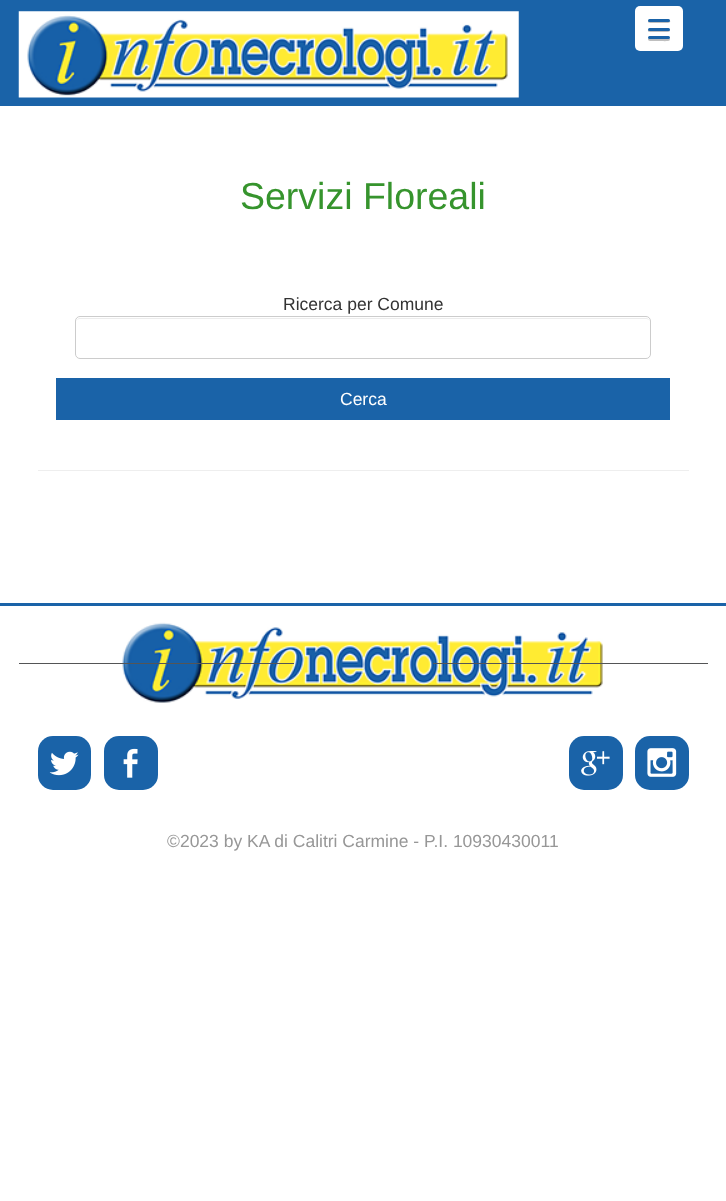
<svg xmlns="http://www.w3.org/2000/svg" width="726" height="1201">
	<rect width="100%" height="100%" fill="#FFFFFF" />
	<rect x="0" y="0" width="726" height="106" fill="#1A63A8" />
	<image x="18" y="11" width="501" height="87" href="assets/img1.png" />
	<rect x="635" y="6" width="48" height="45" rx="5" fill="#FFFFFF" />
	<path d="M648 21C647.5 23.5 652 23 652.5 23H665.5C666 23 671.5 23.5 670 20.5L669 21Z" fill="#BFBFBF" />
	<rect x="648" y="19" width="22" height="3" rx="1.5" fill="#1A63A8" />
	<path d="M648 30C647 32.5 652 32 652.5 32H665.5C665.5 32 672 32.5 669.5 29.5L669 30Z" fill="#BFBFBF" />
	<rect x="648" y="28" width="22" height="3" rx="1.5" fill="#1A63A8" />
	<path d="M648.5 38.5C646.5 41.5 652 41 652.5 41H659C661 41 669 41.5 669.5 40.5C670 39.5 670 39 669.5 38.5C669 39 649.5 39 648.5 38.5Z" fill="#BFBFBF" />
	<rect x="648" y="36" width="22" height="3" rx="1.5" fill="#1A63A8" />
	<rect x="0" y="603" width="726" height="3" fill="#1A63A8" />
	<text x="240" y="209" font-family="Liberation Sans" font-size="37.5" fill="#36942D">Servizi Floreali</text>
	<text x="283" y="310" font-family="Liberation Sans" font-size="17.5" fill="#333333">Ricerca per Comune</text>
	<path d="M80 319H646C648 319 650 320 650 322C650 320 648 318 646 318H80C78 318 76 320 76 322C76 320 78 319 80 319Z" fill="#ECECEC" />
	<rect x="75.5" y="316.5" width="575" height="42" rx="4.5" fill="none" stroke="#CCCCCC" />
	<rect x="56" y="378" width="614" height="42" fill="#1A63A8" />
	<text x="340" y="405" font-family="Liberation Sans" font-size="17.5" fill="#FFFFFF">Cerca</text>
	<rect x="38" y="470" width="651" height="1" fill="#EEEEEE" />
	<image x="122" y="622" width="481" height="81" href="assets/img2.png" />
	<rect x="19" y="663" width="275" height="1" fill="#545556" />
	<rect x="433" y="663" width="275" height="1" fill="#545556" />
	<rect x="38" y="736" width="53" height="54" rx="15" fill="#1A63A8" />
	<image x="49" y="751" width="30" height="25" href="assets/img3.png" />
	<rect x="104" y="736" width="54" height="54" rx="15" fill="#1A63A8" />
	<image x="123" y="748" width="15" height="30" href="assets/img4.png" />
	<rect x="569" y="736" width="54" height="54" rx="15" fill="#1A63A8" />
	<image x="581" y="751" width="29" height="25" href="assets/img5.png" />
	<rect x="635" y="736" width="54" height="54" rx="15" fill="#1A63A8" />
	<image x="647" y="748" width="30" height="29" href="assets/img6.png" />
	<text x="167" y="847" font-family="Liberation Sans" font-size="17.5" fill="#979797">©2023 by KA di Calitri Carmine - P.I. 10930430011</text>
</svg>
